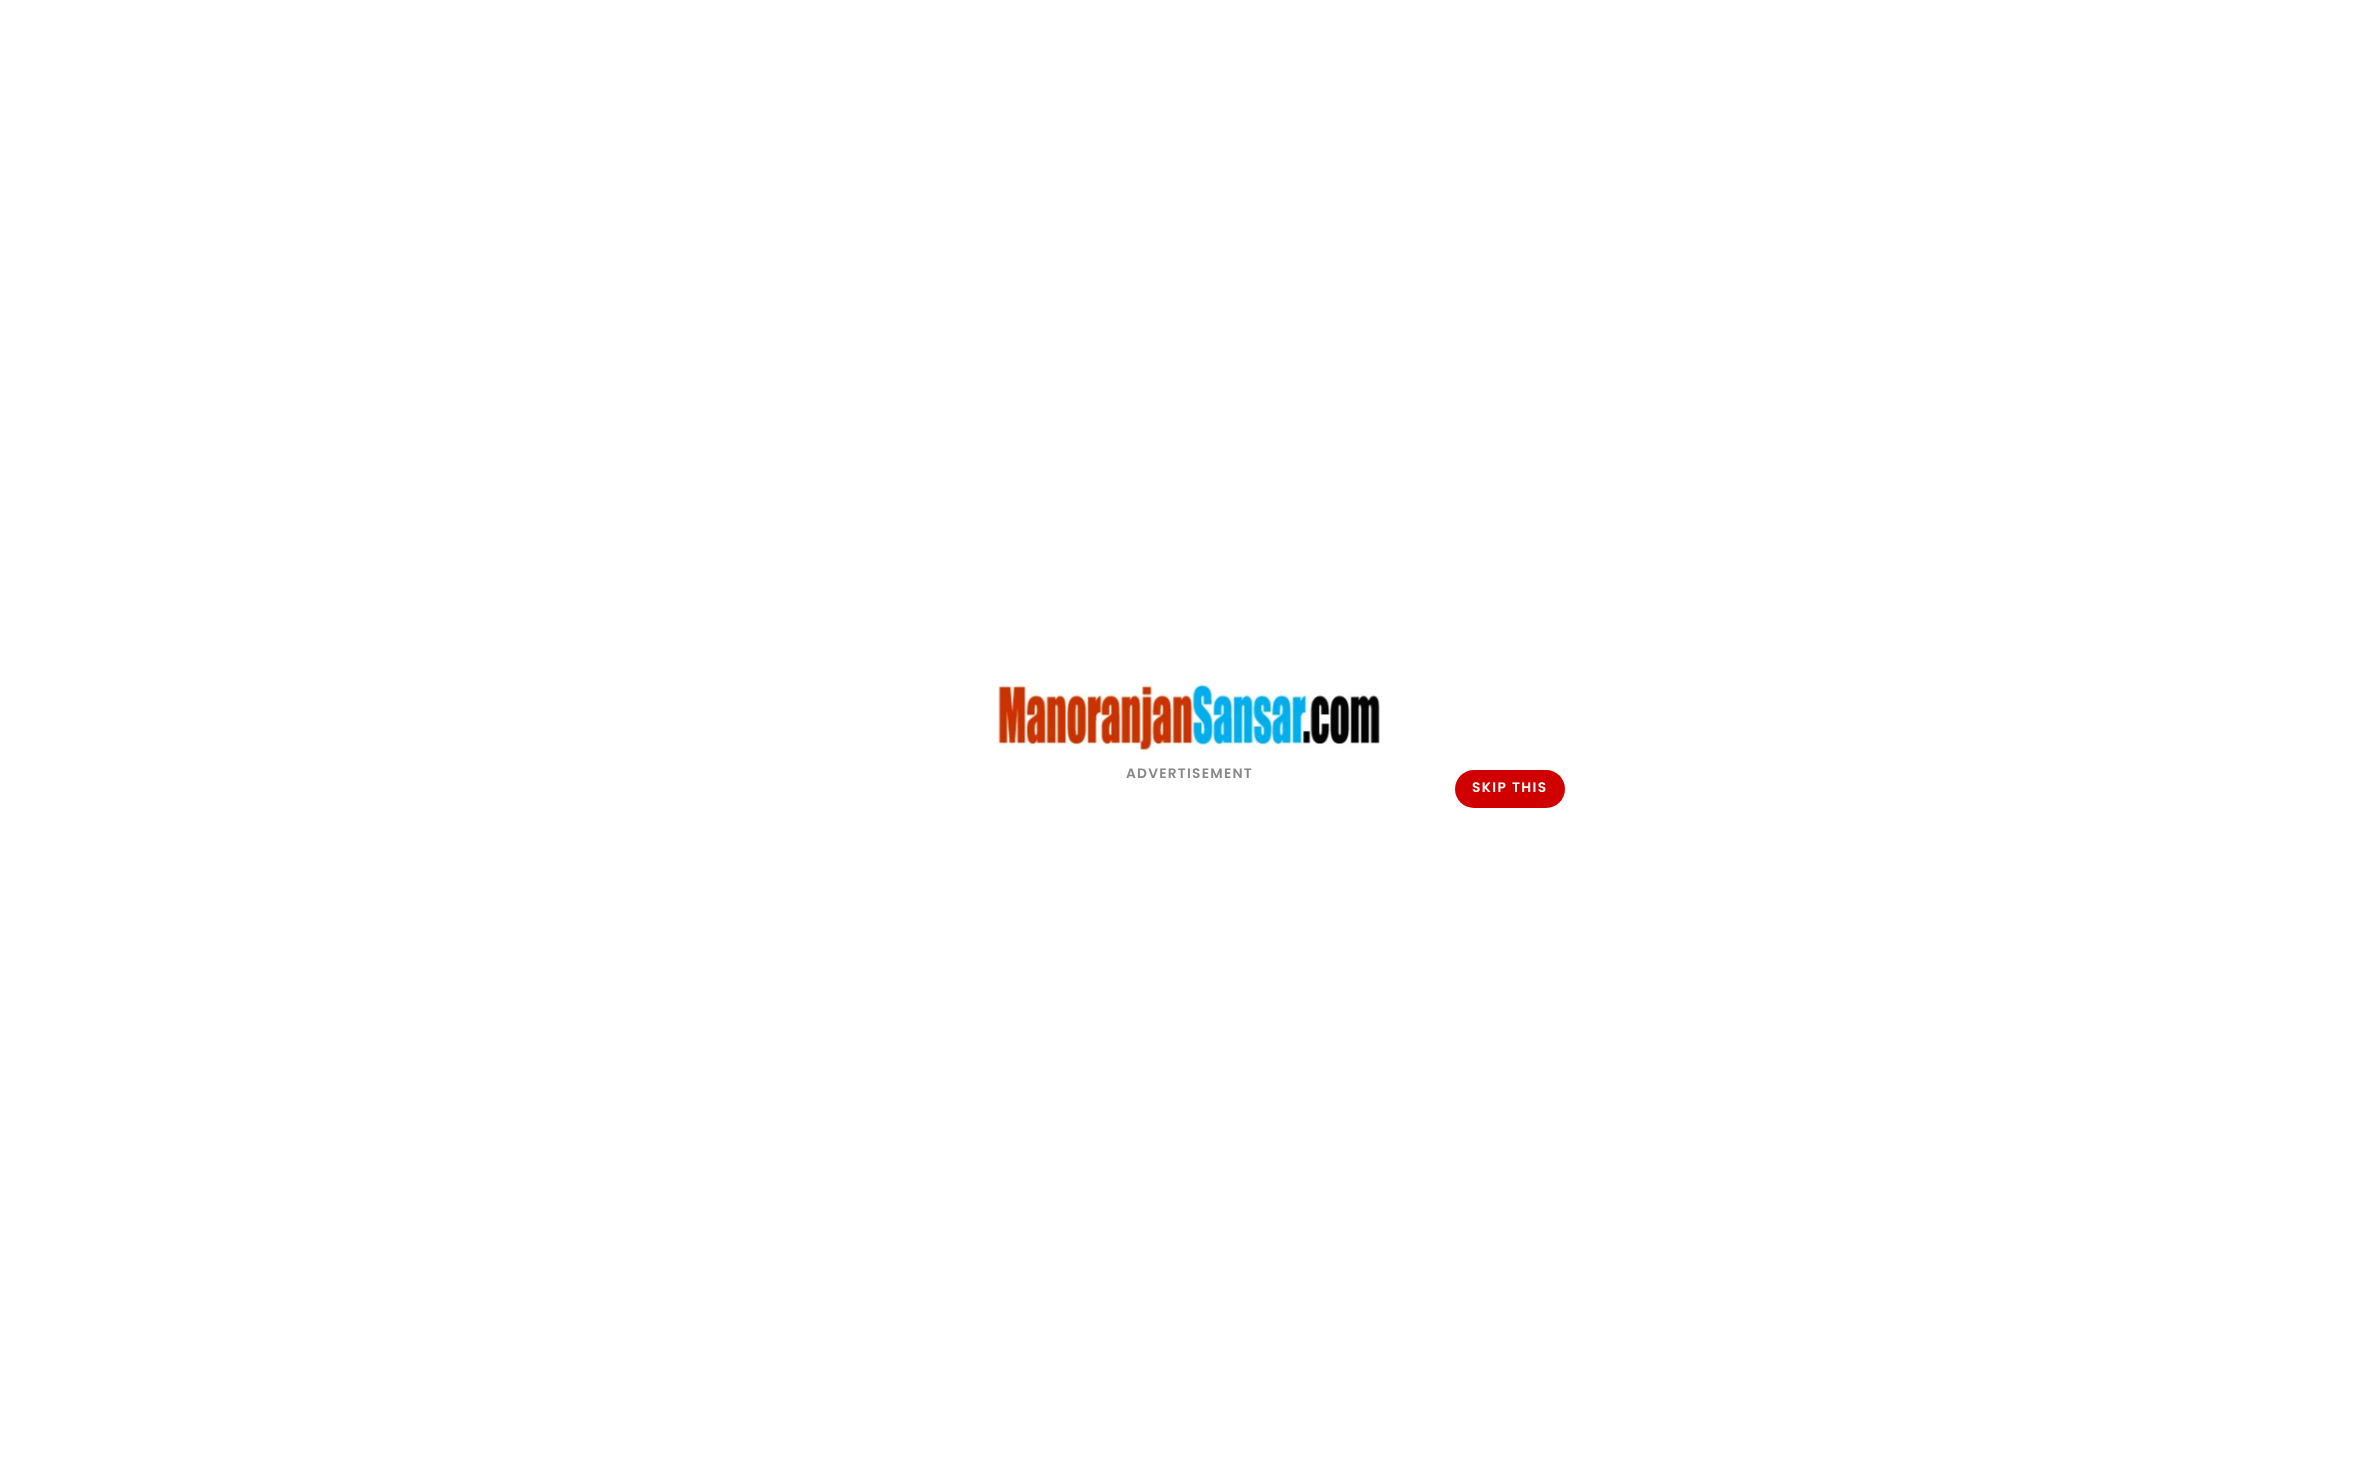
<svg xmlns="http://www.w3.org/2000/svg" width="2380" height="1466">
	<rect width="100%" height="100%" fill="#FFFFFF" />
	<image x="996" y="679" width="384" height="75" href="assets/img1.png" />
	<text x="1126" y="778" font-family="Poppins" font-size="13.75" font-weight="600" letter-spacing="1.25" fill="#888888">ADVERTISEMENT</text>
	<rect x="1455" y="770" width="110" height="38" rx="19" fill="#D10000" />
	<text x="1472" y="792" font-family="Poppins" font-size="13.75" font-weight="600" letter-spacing="1.4" fill="#FFFFFF">SKIP THIS</text>
</svg>
